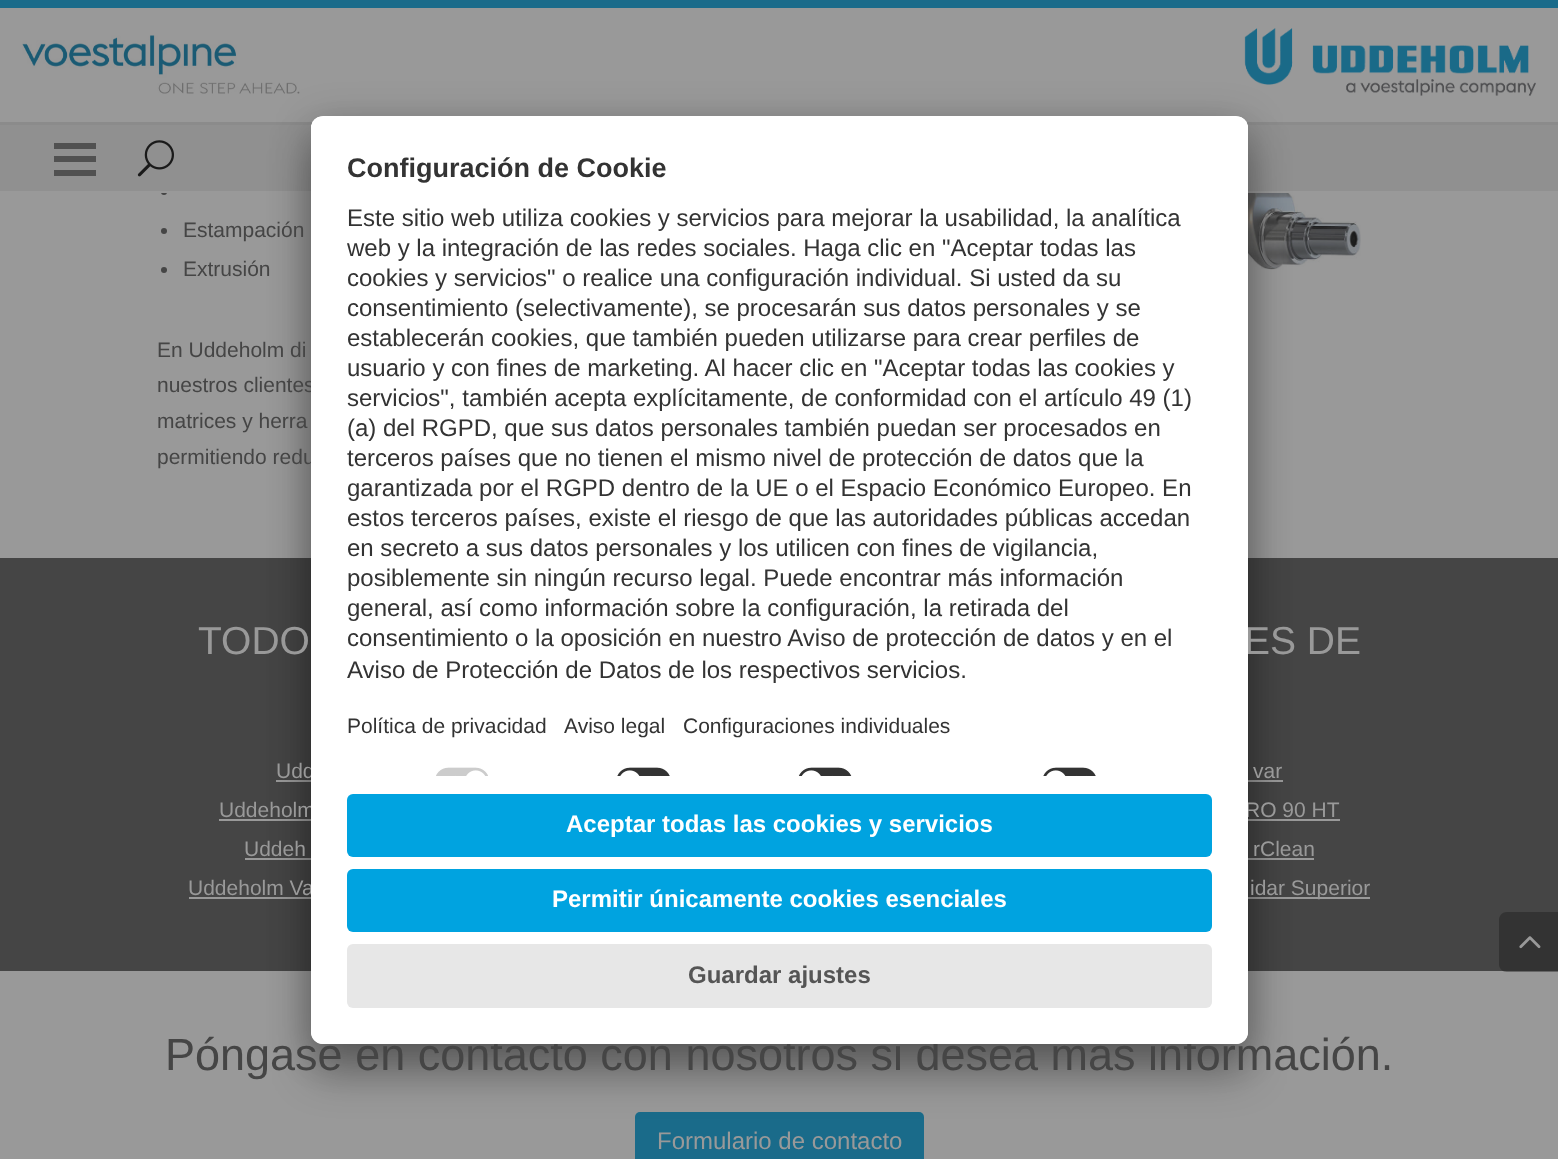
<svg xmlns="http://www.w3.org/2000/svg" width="1558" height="1159">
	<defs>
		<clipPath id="clip1"><rect x="311" y="116" width="937" height="928" rx="12" /></clipPath>
		<clipPath id="clip2"><path d="M323 116H1236C1242.5 116 1248 121.5 1248 128V776H311V128C311 121.5 316.5 116 323 116Z" /></clipPath>
	</defs>
	<rect width="100%" height="100%" fill="#999999" />
	<circle cx="164" cy="192" r="3" fill="#454545" />
	<rect x="161" y="191" width="6" height="2" fill="#999999" />
	<rect x="0" y="0" width="1558" height="8" fill="#1A6B8A" />
	<rect x="0" y="122" width="1558" height="3" fill="#8B8B8B" />
	<image x="22" y="35" width="278" height="59" href="assets/img1.png" />
	<image x="1244" y="28" width="292" height="68" href="assets/img2.png" />
	<rect x="0" y="125" width="1558" height="66" fill="#909090" />
	<rect x="54" y="143" width="42" height="6" fill="#515151" />
	<rect x="54" y="156" width="42" height="6" fill="#515151" />
	<rect x="54" y="170" width="42" height="6" fill="#515151" />
	<image x="137" y="140" width="37" height="37" href="assets/img3.png" />
	<image x="1248" y="193" width="113" height="113" href="assets/img7.png" />
	<rect x="0" y="558" width="1558" height="413" fill="#454545" />
	<rect x="276" y="780" width="35" height="2" fill="#999999" />
	<rect x="1248" y="780" width="35" height="2" fill="#999999" />
	<rect x="219" y="819" width="92" height="2" fill="#999999" />
	<rect x="1248" y="819" width="92" height="2" fill="#999999" />
	<rect x="245" y="858" width="66" height="2" fill="#999999" />
	<rect x="1248" y="858" width="66" height="2" fill="#999999" />
	<rect x="189" y="897" width="122" height="2" fill="#999999" />
	<rect x="1248" y="897" width="122" height="2" fill="#999999" />
	<rect x="636" y="1113" width="287" height="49" rx="3" fill="#1A6B8A" />
	<rect x="636" y="1113" width="287" height="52" rx="4" fill="none" stroke="#1A6B8A" stroke-width="2" />
	<rect x="311" y="146" width="937" height="928" rx="12" fill="#000000" fill-opacity="0.3" filter="blur(21px)" />
	<rect x="311" y="123" width="937" height="929" rx="12" fill="#000000" fill-opacity="0.22" filter="blur(19.5px)" />
	<g font-family="Liberation Sans" font-size="21" fill="#454545">
		<text x="157" y="392">nuestros clientes</text>
		<text x="157" y="464">permitiendo redu</text>
	</g>
	<text x="1244" y="654" font-family="Liberation Sans" font-size="39" fill="#999999">ES DE</text>
	<g font-family="Liberation Sans" font-size="21" fill="#999999">
		<text x="276" y="778">Udd</text>
		<text x="219" y="817">Uddeholm</text>
		<text x="1245" y="817">RO 90 HT</text>
		<text x="188" y="895">Uddeholm Va</text>
	</g>
	<text x="165" y="1070" font-family="Liberation Sans" font-size="45" fill="#454545">Póngase en contacto con nosotros si desea más información.</text>
	<rect x="311" y="116" width="937" height="928" rx="12" fill="#FFFFFF" />
	<g clip-path="url(#clip1)">
		<g clip-path="url(#clip2)">
			<rect x="311" y="117" width="937" height="659" fill="#FFFFFF" />
			<rect x="311" y="117" width="937" height="644" fill="#FFFFFF" />
		</g>
	</g>
	<text x="347" y="177" font-family="Liberation Sans" font-size="27" font-weight="700" fill="#333333">Configuración de Cookie</text>
	<g font-family="Liberation Sans" font-size="24" fill="#333333">
		<text x="347" y="226">Este sitio web utiliza cookies y servicios para mejorar la usabilidad, la analítica</text>
		<text x="347" y="256">web y la integración de las redes sociales. Haga clic en "Aceptar todas las</text>
		<text x="347" y="286">cookies y servicios" o realice una configuración individual. Si usted da su</text>
		<text x="347" y="316">consentimiento (selectivamente), se procesarán sus datos personales y se</text>
		<text x="347" y="346">establecerán cookies, que también pueden utilizarse para crear perfiles de</text>
		<text x="347" y="376">usuario y con fines de marketing. Al hacer clic en "Aceptar todas las cookies y</text>
		<text x="347" y="406">servicios", también acepta explícitamente, de conformidad con el artículo 49 (1)</text>
		<text x="347" y="436">(a) del RGPD, que sus datos personales también puedan ser procesados en</text>
		<text x="347" y="466">terceros países que no tienen el mismo nivel de protección de datos que la</text>
		<text x="347" y="496">garantizada por el RGPD dentro de la UE o el Espacio Económico Europeo. En</text>
		<text x="347" y="526">estos terceros países, existe el riesgo de que las autoridades públicas accedan</text>
		<text x="347" y="556">en secreto a sus datos personales y los utilicen con fines de vigilancia,</text>
		<text x="347" y="586">posiblemente sin ningún recurso legal. Puede encontrar más información</text>
		<text x="347" y="616">general, así como información sobre la configuración, la retirada del</text>
		<text x="347" y="646">consentimiento o la oposición en nuestro Aviso de protección de datos y en el</text>
		<text x="347" y="678">Aviso de Protección de Datos de los respectivos servicios.</text>
	</g>
	<g font-family="Liberation Sans" font-size="21" fill="#333333">
		<text x="347" y="733">Política de privacidad</text>
		<text x="564" y="733">Aviso legal</text>
		<text x="683" y="733">Configuraciones individuales</text>
	</g>
	<image x="436" y="767" width="52" height="9" href="assets/img4.png" />
	<image x="617" y="767" width="53" height="9" href="assets/img5.png" />
	<image x="798" y="767" width="54" height="9" href="assets/img6.png" />
	<image x="1043" y="767" width="53" height="9" href="assets/img5.png" />
	<path d="M311 776H1248V1032C1248 1038.5 1242.5 1044 1236 1044H323C316.5 1044 311 1038.5 311 1032Z" fill="#FFFFFF" />
	<rect x="347" y="794" width="865" height="63" rx="6" fill="#00A3E0" />
	<text x="566" y="832" font-family="Liberation Sans" font-size="24" font-weight="700" fill="#FFFFFF">Aceptar todas las cookies y servicios</text>
	<rect x="347" y="869" width="865" height="63" rx="6" fill="#00A3E0" />
	<text x="552" y="907" font-family="Liberation Sans" font-size="24" font-weight="700" fill="#FFFFFF">Permitir únicamente cookies esenciales</text>
	<rect x="347" y="944" width="865" height="64" rx="6" fill="#E7E7E7" />
	<text x="688" y="983" font-family="Liberation Sans" font-size="24" font-weight="700" fill="#555555">Guardar ajustes</text>
	<circle cx="164" cy="231" r="3" fill="#454545" />
	<text x="183" y="237" font-family="Liberation Sans" font-size="21" fill="#454545">Estampación</text>
	<circle cx="164" cy="270" r="3" fill="#454545" />
	<g font-family="Liberation Sans" font-size="21" fill="#454545">
		<text x="183" y="276">Extrusión</text>
		<text x="157" y="357">En Uddeholm di</text>
		<text x="157" y="428">matrices y herra</text>
	</g>
	<text x="198" y="654" font-family="Liberation Sans" font-size="39" fill="#999999">TODO</text>
	<g font-family="Liberation Sans" font-size="21" fill="#999999">
		<text x="1253" y="778">var</text>
		<text x="244" y="856">Uddeh</text>
		<text x="1253" y="856">rClean</text>
		<text x="1250" y="895">idar Superior</text>
	</g>
	<text x="657" y="1149" font-family="Liberation Sans" font-size="24" fill="#999999">Formulario de contacto</text>
	<path d="M1507 912H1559V972H1507C1502.5 972 1499 968.5 1499 964V920C1499 915.5 1502.5 912 1507 912Z" fill="#1A1A1A" fill-opacity="0.4" />
	<image x="1519" y="936" width="22" height="13" href="assets/img8.png" />
</svg>
